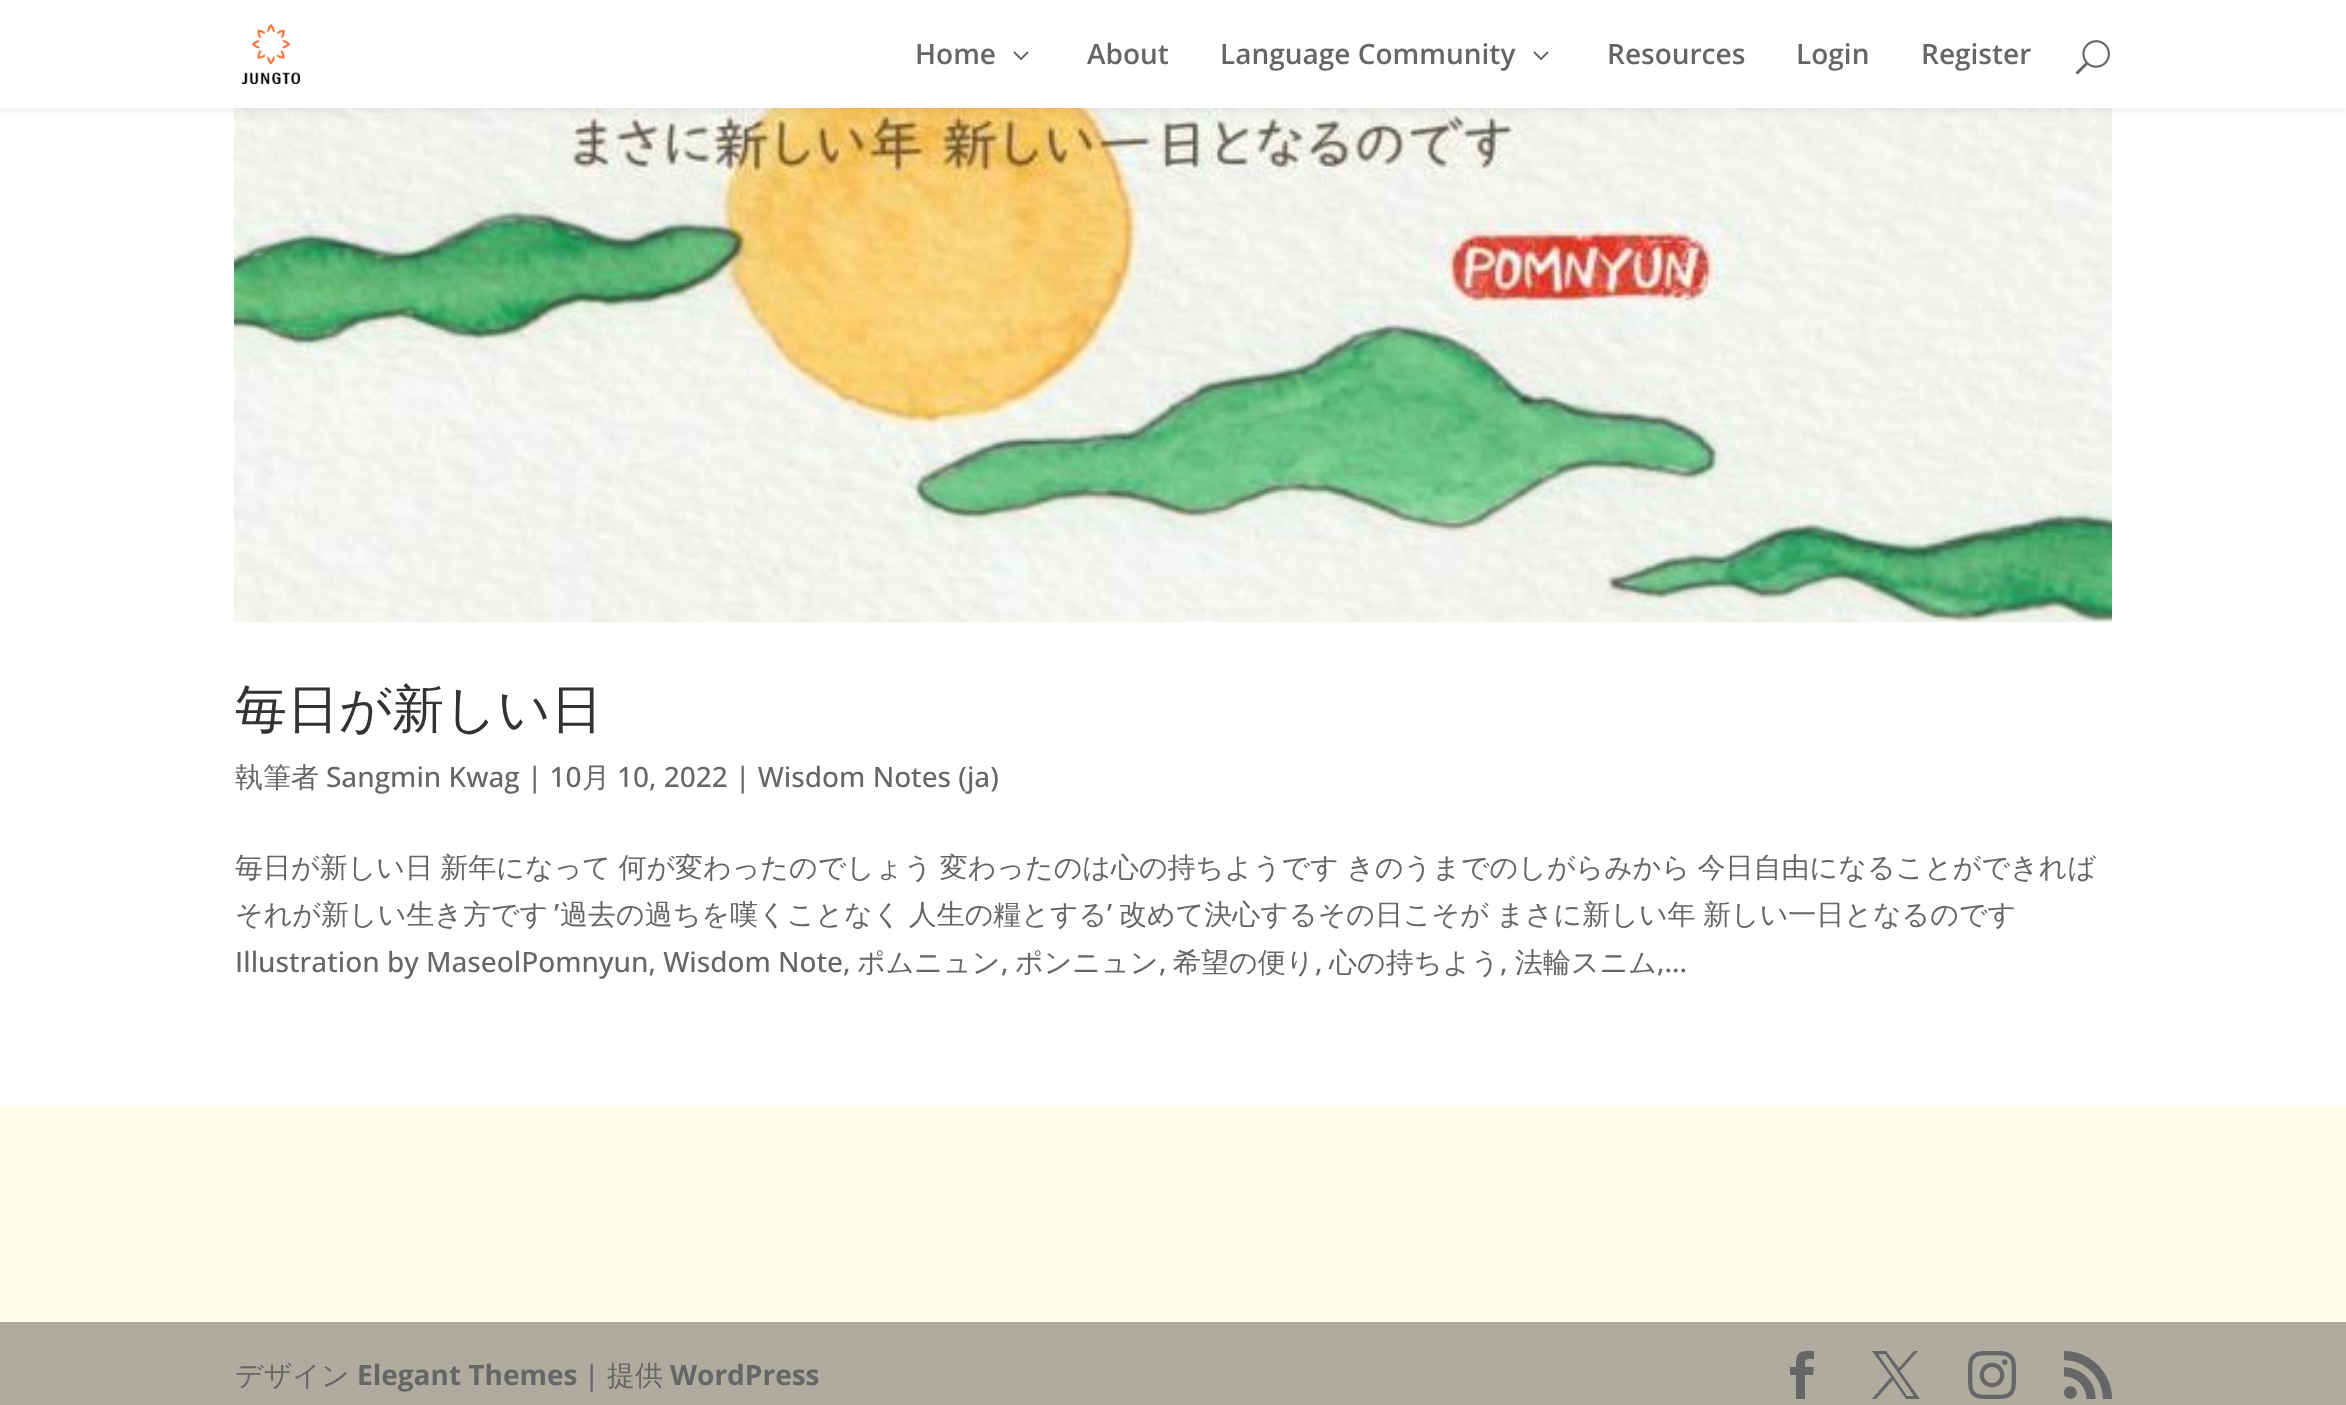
<svg xmlns="http://www.w3.org/2000/svg" width="2346" height="1405">
	<rect width="100%" height="100%" fill="#FFFFFF" />
	<image x="234" y="108" width="1878" height="514" href="assets/img4.png" />
	<rect x="0" y="0" width="2346" height="108" fill="#000000" fill-opacity="0.1" filter="blur(7px)" />
	<rect x="0" y="0" width="2346" height="108" fill="#FFFFFF" />
	<image x="242" y="24" width="58" height="60" href="assets/img1.png" />
	<text x="915" y="64" font-family="Open Sans" font-size="28" font-weight="600" fill="#666666">Home</text>
	<image x="1013" y="51" width="16" height="9" href="assets/img2.png" />
	<g font-family="Open Sans" font-size="28" font-weight="600" fill="#666666">
		<text x="1087" y="64">About</text>
		<text x="1220" y="64">Language Community</text>
	</g>
	<image x="1533" y="51" width="16" height="9" href="assets/img2.png" />
	<g font-family="Open Sans" font-size="28" font-weight="600" fill="#666666">
		<text x="1607" y="64">Resources</text>
		<text x="1796" y="64">Login</text>
		<text x="1921" y="64">Register</text>
	</g>
	<image x="2075" y="40" width="35" height="35" href="assets/img3.png" />
	<text x="235" y="727" font-family="WenQuanYi Zen Hei" font-size="52" font-weight="500" fill="#333333">毎日が新しい日</text>
	<text x="235" y="787" font-family="WenQuanYi Zen Hei" font-size="28" font-weight="500" fill="#666666">執筆者</text>
	<text x="326" y="787" font-family="Open Sans" font-size="28" font-weight="500" fill="#666666">Sangmin Kwag | 10</text>
	<text x="582" y="787" font-family="WenQuanYi Zen Hei" font-size="28" font-weight="500" fill="#666666">月</text>
	<text x="617" y="787" font-family="Open Sans" font-size="28" font-weight="500" fill="#666666">10, 2022 | Wisdom Notes (ja)</text>
	<g font-family="WenQuanYi Zen Hei" font-size="28" font-weight="500" fill="#666666">
		<text x="235" y="877" word-spacing="-1">毎日が新しい日 新年になって 何が変わったのでしょう 変わったのは心の持ちようです きのうまでのしがらみから 今日自由になることができれば</text>
		<text x="235" y="924">それが新しい生き方です</text>
	</g>
	<text x="554" y="924" font-family="Open Sans" font-size="28" font-weight="500" fill="#666666">’</text>
	<text x="560" y="924" word-spacing="-1" font-family="WenQuanYi Zen Hei" font-size="28" font-weight="500" fill="#666666">過去の過ちを嘆くことなく 人生の糧とする</text>
	<text x="1107" y="924" font-family="Open Sans" font-size="28" font-weight="500" fill="#666666">’</text>
	<text x="1119" y="924" word-spacing="-1" font-family="WenQuanYi Zen Hei" font-size="28" font-weight="500" fill="#666666">改めて決心するその日こそが まさに新しい年 新しい一日となるのです</text>
	<text x="235" y="972" font-family="Open Sans" font-size="28" font-weight="500" fill="#666666">Illustration by MaseolPomnyun, Wisdom Note,</text>
	<text x="857" y="972" font-family="WenQuanYi Zen Hei" font-size="28" font-weight="500" fill="#666666">ポムニュン</text>
	<text x="1001" y="972" font-family="Open Sans" font-size="28" font-weight="500" fill="#666666">,</text>
	<text x="1015" y="972" font-family="WenQuanYi Zen Hei" font-size="28" font-weight="500" fill="#666666">ポンニュン</text>
	<text x="1159" y="972" font-family="Open Sans" font-size="28" font-weight="500" fill="#666666">,</text>
	<text x="1173" y="972" font-family="WenQuanYi Zen Hei" font-size="28" font-weight="500" fill="#666666">希望の便り</text>
	<text x="1315" y="972" font-family="Open Sans" font-size="28" font-weight="500" fill="#666666">,</text>
	<text x="1329" y="972" font-family="WenQuanYi Zen Hei" font-size="28" font-weight="500" fill="#666666">心の持ちよう</text>
	<text x="1500" y="972" font-family="Open Sans" font-size="28" font-weight="500" fill="#666666">,</text>
	<text x="1515" y="972" font-family="WenQuanYi Zen Hei" font-size="28" font-weight="500" fill="#666666">法輪スニム</text>
	<text x="1657" y="972" font-family="Open Sans" font-size="28" font-weight="500" fill="#666666">,...</text>
	<rect x="0" y="1106" width="2346" height="216" fill="#FFFCEA" />
	<rect x="0" y="1322" width="2346" height="83" fill="#AEAB9F" />
	<text x="235" y="1385" font-family="WenQuanYi Zen Hei" font-size="28" font-weight="500" fill="#666666">デザイン</text>
	<text x="357" y="1385" font-family="Open Sans" font-size="28" font-weight="700" fill="#666666">Elegant Themes</text>
	<text x="584" y="1385" font-family="Open Sans" font-size="28" font-weight="500" fill="#666666">|</text>
	<text x="607" y="1385" font-family="WenQuanYi Zen Hei" font-size="28" font-weight="500" fill="#666666">提供</text>
	<text x="670" y="1385" font-family="Open Sans" font-size="28" font-weight="700" fill="#666666">WordPress</text>
	<path d="M1796 1399H1805V1375H1813L1814 1367H1805C1805 1358 1805 1359 1814 1359V1351C1799 1351 1796 1351 1796 1367H1790V1375H1796Z" fill="#666666" />
	<path d="M1872 1351L1891 1377L1872 1399H1876L1893 1380L1906 1399H1920L1900 1371L1918 1351H1914L1899 1368L1886 1351ZM1878 1354H1885L1914 1396H1907Z" fill="#666666" />
	<image x="1968" y="1351" width="48" height="48" href="assets/img5.png" />
	<image x="2064" y="1351" width="48" height="48" href="assets/img6.png" />
</svg>
